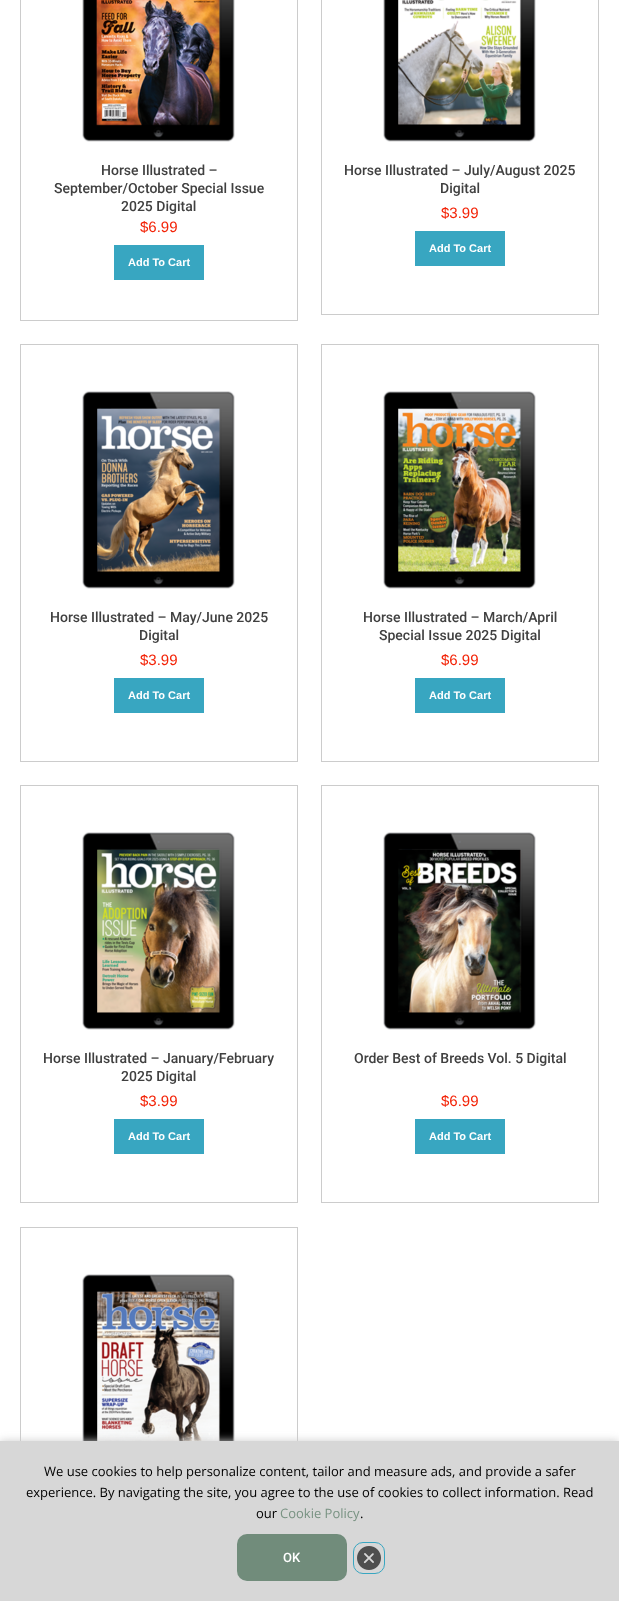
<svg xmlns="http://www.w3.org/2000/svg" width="619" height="1601">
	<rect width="100%" height="100%" fill="#FFFFFF" />
	<rect x="20.5" y="-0.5" width="277" height="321" fill="none" stroke="#CCCCCC" />
	<image x="82" y="0" width="153" height="142" href="assets/img1.png" />
	<g font-family="Roboto" font-size="14" font-weight="500" fill="#404040">
		<text x="101" y="175">Horse Illustrated –</text>
		<text x="54" y="193">September/October Special Issue</text>
		<text x="121" y="211">2025 Digital</text>
	</g>
	<text x="140" y="232" font-family="Liberation Sans" font-size="15" fill="#F32307">$6.99</text>
	<rect x="114" y="245" width="90" height="35" fill="#38A6C1" />
	<text x="128" y="266" font-family="Liberation Sans" font-size="11" font-weight="700" fill="#FFFFFF">Add To Cart</text>
	<rect x="321.5" y="-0.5" width="277" height="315" fill="none" stroke="#CCCCCC" />
	<image x="383" y="0" width="153" height="142" href="assets/img2.png" />
	<g font-family="Roboto" font-size="14" font-weight="500" fill="#404040">
		<text x="344" y="175">Horse Illustrated – July/August 2025</text>
		<text x="440" y="193">Digital</text>
	</g>
	<text x="441" y="218" font-family="Liberation Sans" font-size="15" fill="#F32307">$3.99</text>
	<rect x="415" y="231" width="90" height="35" fill="#38A6C1" />
	<text x="429" y="252" font-family="Liberation Sans" font-size="11" font-weight="700" fill="#FFFFFF">Add To Cart</text>
	<rect x="20.5" y="344.5" width="277" height="417" fill="none" stroke="#CCCCCC" />
	<image x="82" y="391" width="153" height="198" href="assets/img3.png" />
	<g font-family="Roboto" font-size="14" font-weight="500" fill="#404040">
		<text x="50" y="622">Horse Illustrated – May/June 2025</text>
		<text x="139" y="640">Digital</text>
	</g>
	<text x="140" y="665" font-family="Liberation Sans" font-size="15" fill="#F32307">$3.99</text>
	<rect x="114" y="678" width="90" height="35" fill="#38A6C1" />
	<text x="128" y="699" font-family="Liberation Sans" font-size="11" font-weight="700" fill="#FFFFFF">Add To Cart</text>
	<rect x="321.5" y="344.5" width="277" height="417" fill="none" stroke="#CCCCCC" />
	<image x="383" y="391" width="153" height="198" href="assets/img4.png" />
	<g font-family="Roboto" font-size="14" font-weight="500" fill="#404040">
		<text x="363" y="622">Horse Illustrated – March/April</text>
		<text x="379" y="640">Special Issue 2025 Digital</text>
	</g>
	<text x="441" y="665" font-family="Liberation Sans" font-size="15" fill="#F32307">$6.99</text>
	<rect x="415" y="678" width="90" height="35" fill="#38A6C1" />
	<text x="429" y="699" font-family="Liberation Sans" font-size="11" font-weight="700" fill="#FFFFFF">Add To Cart</text>
	<rect x="20.5" y="785.5" width="277" height="417" fill="none" stroke="#CCCCCC" />
	<image x="82" y="832" width="153" height="198" href="assets/img5.png" />
	<g font-family="Roboto" font-size="14" font-weight="500" fill="#404040">
		<text x="43" y="1063">Horse Illustrated – January/February</text>
		<text x="121" y="1081">2025 Digital</text>
	</g>
	<text x="140" y="1106" font-family="Liberation Sans" font-size="15" fill="#F32307">$3.99</text>
	<rect x="114" y="1119" width="90" height="35" fill="#38A6C1" />
	<text x="128" y="1140" font-family="Liberation Sans" font-size="11" font-weight="700" fill="#FFFFFF">Add To Cart</text>
	<rect x="321.5" y="785.5" width="277" height="417" fill="none" stroke="#CCCCCC" />
	<image x="383" y="832" width="153" height="198" href="assets/img6.png" />
	<text x="354" y="1063" font-family="Roboto" font-size="14" font-weight="500" fill="#404040">Order Best of Breeds Vol. 5 Digital</text>
	<text x="441" y="1106" font-family="Liberation Sans" font-size="15" fill="#F32307">$6.99</text>
	<rect x="415" y="1119" width="90" height="35" fill="#38A6C1" />
	<text x="429" y="1140" font-family="Liberation Sans" font-size="11" font-weight="700" fill="#FFFFFF">Add To Cart</text>
	<rect x="20.5" y="1227.5" width="277" height="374" fill="none" stroke="#CCCCCC" />
	<image x="82" y="1274" width="153" height="167" href="assets/img7.png" />
	<rect x="0" y="1441" width="619" height="160" fill="#CCCCCC" filter="blur(4px)" />
	<rect x="0" y="1441" width="619" height="160" fill="#D7D7D7" />
	<g font-family="Open Sans" font-size="13" fill="#000000">
		<text x="44" y="1476">We use cookies to help personalize content, tailor and measure ads, and provide a safer</text>
		<text x="26" y="1497">experience. By navigating the site, you agree to the use of cookies to collect information. Read</text>
		<text x="256" y="1518">our</text>
	</g>
	<text x="280" y="1518" font-family="Open Sans" font-size="13" fill="#789282">Cookie Policy</text>
	<text x="360" y="1518" font-family="Open Sans" font-size="13" fill="#000000">.</text>
	<rect x="237" y="1534" width="110" height="47" rx="10" fill="#718C7B" />
	<text x="283" y="1562" font-family="Roboto" font-size="13" font-weight="500" fill="#FFFFFF">OK</text>
	<image x="357" y="1546" width="24" height="24" href="assets/img8.png" />
	<rect x="353.5" y="1542.5" width="31" height="31" rx="9.5" fill="none" stroke="#38A6C1" />
</svg>
